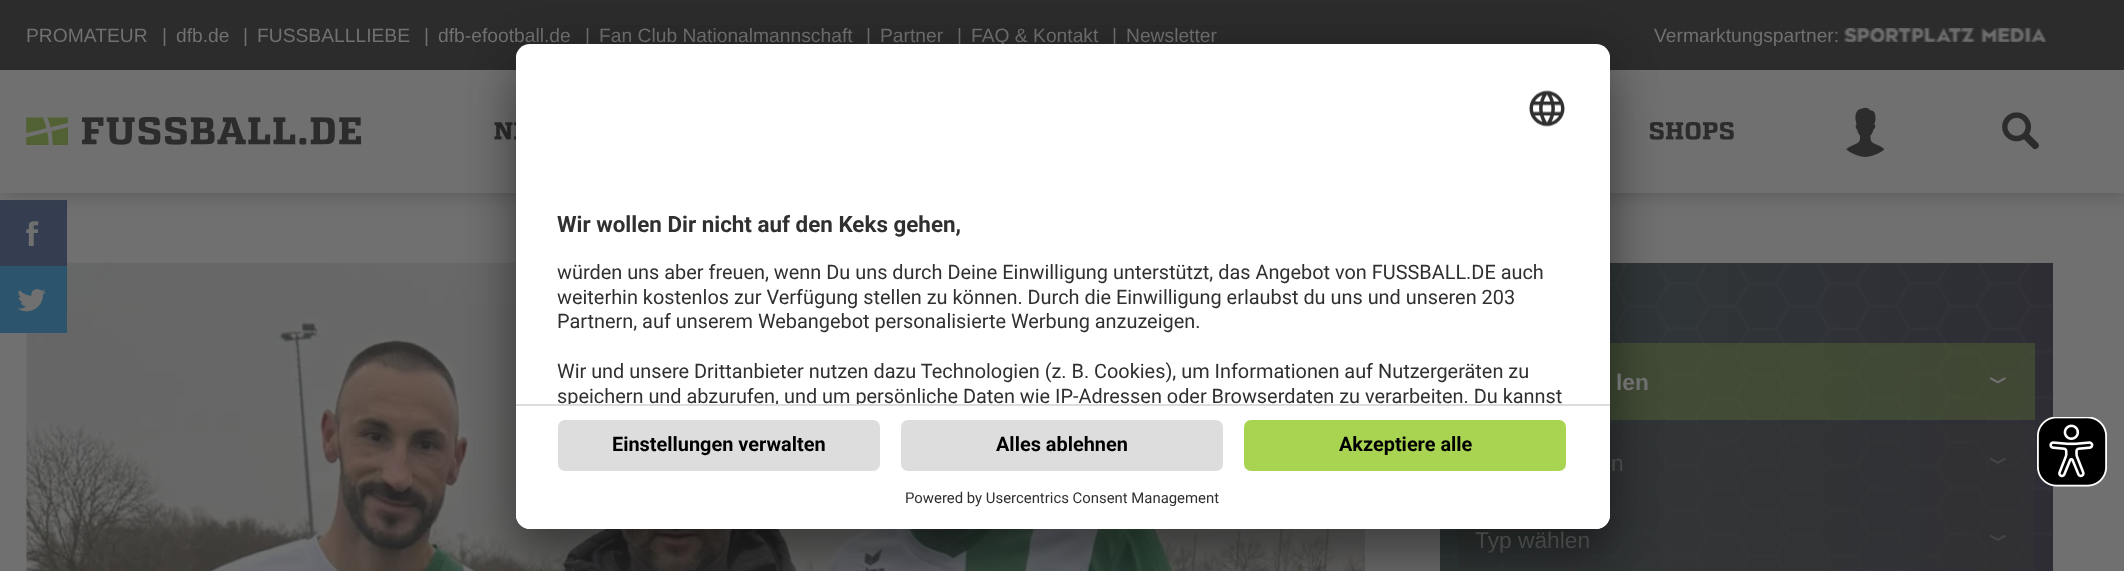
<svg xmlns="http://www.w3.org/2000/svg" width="2124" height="571">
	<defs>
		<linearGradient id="g1" gradientUnits="userSpaceOnUse" x1="1440" y1="476" x2="2053" y2="476"><stop offset="0" stop-color="#313A39" /><stop offset="1" stop-color="#2E2D35" /></linearGradient>
		<clipPath id="clip1"><rect x="516" y="44" width="1094" height="485" rx="14" /></clipPath>
		<clipPath id="clip2"><path d="M530 44H1596C1603.5 44 1610 50.5 1610 58V404H516V58C516 50.5 522.5 44 530 44Z" /></clipPath>
	</defs>
	<rect width="100%" height="100%" fill="#707070" />
	<image x="26" y="262" width="1339" height="309" href="assets/img11.png" />
	<rect x="0" y="200" width="67" height="66" fill="#353E51" />
	<image x="26" y="221" width="13" height="25" href="assets/img8.png" />
	<rect x="4" y="4" width="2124" height="192" fill="#333333" fill-opacity="0.3" filter="blur(9px)" />
	<rect x="0" y="70" width="2124" height="123" fill="#707070" />
	<rect x="0" y="0" width="2124" height="70" fill="#2C2C2C" />
	<g font-family="Liberation Sans" font-size="19.25" fill="#707070">
		<text x="26" y="42">PROMATEUR</text>
		<text x="162" y="42">|</text>
		<text x="176" y="42">dfb.de</text>
		<text x="243" y="42">|</text>
		<text x="257" y="42">FUSSBALLLIEBE</text>
		<text x="424" y="42">|</text>
		<text x="438" y="42">dfb-efootball.de</text>
		<text x="585" y="42">|</text>
		<text x="599" y="42">Fan Club Nationalmannschaft</text>
		<text x="866" y="42">|</text>
		<text x="880" y="42">Partner</text>
		<text x="957" y="42">|</text>
		<text x="971" y="42">FAQ &amp; Kontakt</text>
		<text x="1112" y="42">|</text>
		<text x="1126" y="42">Newsletter</text>
		<text x="1654" y="42">Vermarktungspartner:</text>
	</g>
	<image x="1844" y="28" width="202" height="14" href="assets/img1.png" />
	<image x="26" y="117" width="42" height="28" href="assets/img2.png" />
	<image x="82" y="117" width="280" height="28" href="assets/img3.png" />
	<image x="494" y="122" width="22" height="18" href="assets/img4.png" />
	<image x="1649" y="122" width="85" height="18" href="assets/img5.png" />
	<image x="1846" y="107" width="39" height="50" href="assets/img6.png" />
	<image x="2002" y="112" width="37" height="38" href="assets/img7.png" />
	<rect x="0" y="266" width="67" height="67" fill="#2C546C" />
	<image x="17" y="289" width="29" height="23" href="assets/img9.png" />
	<rect x="1440" y="263" width="613" height="308" fill="url(#g1)" />
	<image x="1440" y="263" width="613" height="308" href="assets/img12.png" />
	<rect x="1610" y="343" width="425" height="77" fill="#526133" fill-opacity="0.5" />
	<rect x="1610" y="424" width="425" height="77" fill="#333333" fill-opacity="0.5" />
	<rect x="1458" y="501" width="577" height="70" fill="#333333" fill-opacity="0.5" />
	<rect x="516" y="79" width="1094" height="485" rx="14" fill="#000000" fill-opacity="0.3" filter="blur(24.5px)" />
	<rect x="516" y="53" width="1094" height="484" rx="14" fill="#000000" fill-opacity="0.22" filter="blur(23px)" />
	<rect x="516" y="44" width="1094" height="485" rx="14" fill="#FFFFFF" />
	<g clip-path="url(#clip1)">
		<g clip-path="url(#clip2)">
			<rect x="516" y="46" width="1094" height="358" fill="#FFFFFF" />
		</g>
	</g>
	<image x="1529" y="90" width="36" height="37" href="assets/img10.png" />
	<text x="557" y="232" font-family="Roboto" font-size="22.4" font-weight="700" fill="#303030">Wir wollen Dir nicht auf den Keks gehen,</text>
	<g font-family="Roboto" font-size="19.9" fill="#303030">
		<text x="557" y="279">würden uns aber freuen, wenn Du uns durch Deine Einwilligung unterstützt, das Angebot von FUSSBALL.DE auch</text>
		<text x="557" y="304">weiterhin kostenlos zur Verfügung stellen zu können. Durch die Einwilligung erlaubst du uns und unseren 203</text>
		<text x="557" y="328">Partnern, auf unserem Webangebot personalisierte Werbung anzuzeigen.</text>
		<text x="557" y="378">Wir und unsere Drittanbieter nutzen dazu Technologien (z. B. Cookies), um Informationen auf Nutzergeräten zu</text>
	</g>
	<g clip-path="url(#clip2)">
		<text x="557" y="403" font-family="Roboto" font-size="19.9" fill="#303030">speichern und abzurufen, und um persönliche Daten wie IP-Adressen oder Browserdaten zu verarbeiten. Du kannst</text>
	</g>
	<path d="M516 404H1610V515C1610 522.5 1603.5 529 1596 529H530C522.5 529 516 522.5 516 515Z" fill="#FFFFFF" />
	<rect x="516" y="404" width="1094" height="2" fill="#DDDDDD" />
	<rect x="558" y="420" width="322" height="51" rx="7" fill="#DDDDDD" />
	<text x="612" y="451" font-family="Roboto" font-size="19.9" font-weight="700" fill="#000000">Einstellungen verwalten</text>
	<rect x="901" y="420" width="322" height="51" rx="7" fill="#DDDDDD" />
	<text x="996" y="451" font-family="Roboto" font-size="19.9" font-weight="700" fill="#000000">Alles ablehnen</text>
	<rect x="1244" y="420" width="322" height="51" rx="7" fill="#A8D451" />
	<text x="1339" y="451" font-family="Roboto" font-size="19.9" font-weight="700" fill="#000000">Akzeptiere alle</text>
	<text x="905" y="503" font-family="Roboto" font-size="14.9" fill="#303030">Powered by Usercentrics Consent Management</text>
	<text x="1616" y="390" font-family="Liberation Sans" font-size="22.75" font-weight="700" fill="#707070">len</text>
	<image x="1989" y="377" width="17" height="7" href="assets/img13.png" />
	<text x="1611" y="471" font-family="Liberation Sans" font-size="22.75" fill="#454747">n</text>
	<image x="1989" y="457" width="17" height="7" href="assets/img14.png" />
	<text x="1475" y="548" font-family="Liberation Sans" font-size="22.75" fill="#454747">Typ wählen</text>
	<image x="1989" y="534" width="17" height="7" href="assets/img15.png" />
	<image x="2037" y="417" width="70" height="70" href="assets/img16.png" />
</svg>
